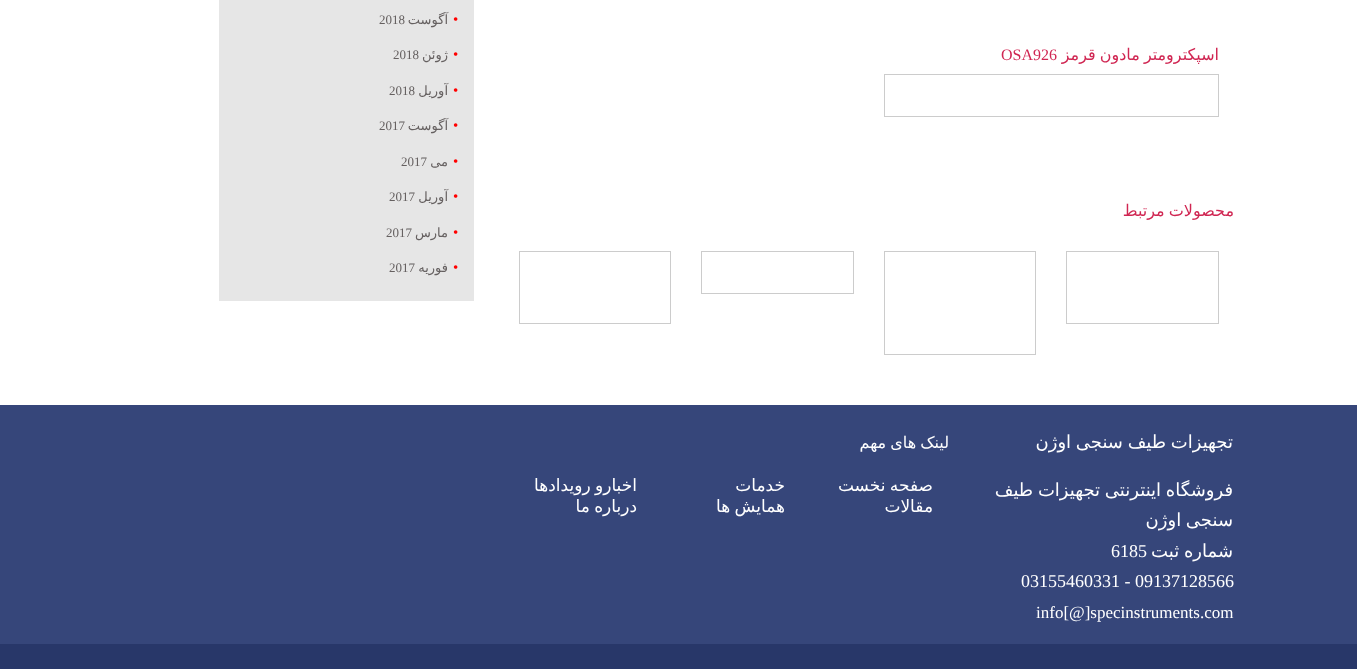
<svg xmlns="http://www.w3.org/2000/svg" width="1357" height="669">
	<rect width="100%" height="100%" fill="#FFFFFF" />
	<text x="1219" y="60" word-spacing="-1" font-family="DejaVu Sans" font-size="16" direction="rtl" fill="#D02652">اسپکترومتر مادون قرمز</text>
	<text x="1001" y="60" font-family="Liberation Serif" font-size="16" fill="#D02652">OSA926</text>
	<rect x="884.5" y="74.5" width="334" height="42" fill="none" stroke="#CCCCCC" />
	<text x="1234" y="216" word-spacing="-1" font-family="DejaVu Sans" font-size="16" direction="rtl" fill="#D02652">محصولات مرتبط</text>
	<rect x="1066.5" y="251.5" width="152" height="72" fill="none" stroke="#CCCCCC" />
	<rect x="884.5" y="251.5" width="151" height="103" fill="none" stroke="#CCCCCC" />
	<rect x="701.5" y="251.5" width="152" height="42" fill="none" stroke="#CCCCCC" />
	<rect x="519.5" y="251.5" width="151" height="72" fill="none" stroke="#CCCCCC" />
	<rect x="219" y="0" width="255" height="301" fill="#E6E6E6" />
	<text x="453" y="24" font-family="Liberation Serif" font-size="15" fill="#FF0000">•</text>
	<text x="448" y="24" font-family="DejaVu Sans" font-size="13" direction="rtl" fill="#656060">آگوست</text>
	<text x="379" y="24" font-family="Liberation Serif" font-size="13" fill="#656060">2018</text>
	<text x="453" y="59" font-family="Liberation Serif" font-size="15" fill="#FF0000">•</text>
	<text x="448" y="59" font-family="DejaVu Sans" font-size="13" direction="rtl" fill="#656060">ژوئن</text>
	<text x="393" y="59" font-family="Liberation Serif" font-size="13" fill="#656060">2018</text>
	<text x="453" y="95" font-family="Liberation Serif" font-size="15" fill="#FF0000">•</text>
	<text x="448" y="95" font-family="DejaVu Sans" font-size="13" direction="rtl" fill="#656060">آوریل</text>
	<text x="389" y="95" font-family="Liberation Serif" font-size="13" fill="#656060">2018</text>
	<text x="453" y="130" font-family="Liberation Serif" font-size="15" fill="#FF0000">•</text>
	<text x="448" y="130" font-family="DejaVu Sans" font-size="13" direction="rtl" fill="#656060">آگوست</text>
	<text x="379" y="130" font-family="Liberation Serif" font-size="13" fill="#656060">2017</text>
	<text x="453" y="166" font-family="Liberation Serif" font-size="15" fill="#FF0000">•</text>
	<text x="401" y="166" font-family="Liberation Serif" font-size="13" fill="#656060">2017</text>
	<text x="448" y="166" font-family="DejaVu Sans" font-size="13" direction="rtl" fill="#656060">می</text>
	<text x="453" y="201" font-family="Liberation Serif" font-size="15" fill="#FF0000">•</text>
	<text x="448" y="201" font-family="DejaVu Sans" font-size="13" direction="rtl" fill="#656060">آوریل</text>
	<text x="389" y="201" font-family="Liberation Serif" font-size="13" fill="#656060">2017</text>
	<text x="453" y="237" font-family="Liberation Serif" font-size="15" fill="#FF0000">•</text>
	<text x="448" y="237" font-family="DejaVu Sans" font-size="13" direction="rtl" fill="#656060">مارس</text>
	<text x="386" y="237" font-family="Liberation Serif" font-size="13" fill="#656060">2017</text>
	<text x="453" y="272" font-family="Liberation Serif" font-size="15" fill="#FF0000">•</text>
	<text x="448" y="272" font-family="DejaVu Sans" font-size="13" direction="rtl" fill="#656060">فوریه</text>
	<text x="389" y="272" font-family="Liberation Serif" font-size="13" fill="#656060">2017</text>
	<rect x="0" y="405" width="1357" height="239" fill="#36467A" />
	<g font-family="DejaVu Sans" font-size="18" direction="rtl" fill="#FFFFFF">
		<text x="1233" y="448" word-spacing="-1">تجهیزات طیف سنجی اوژن</text>
		<text x="1233" y="496" word-spacing="-1">فروشگاه اینترنتی تجهیزات طیف</text>
		<text x="1233" y="526" word-spacing="-1">سنجی اوژن</text>
		<text x="1233" y="557" word-spacing="-1">شماره ثبت</text>
	</g>
	<g font-family="Liberation Serif" font-size="18" fill="#FFFFFF">
		<text x="1111" y="557">6185</text>
		<text x="1021" y="587">03155460331 - 09137128566</text>
	</g>
	<text x="1036" y="618" font-family="Liberation Serif" font-size="17" fill="#FFFFFF">info[@]specinstruments.com</text>
	<text x="949" y="448" word-spacing="-1" font-family="DejaVu Sans" font-size="16" direction="rtl" fill="#FFFFFF">لینک های مهم</text>
	<g font-family="DejaVu Sans" font-size="17" direction="rtl" fill="#FFFFFF">
		<text x="933" y="491" word-spacing="-1">صفحه نخست</text>
		<text x="785" y="491">خدمات</text>
		<text x="637" y="491" word-spacing="-1">اخبارو رویدادها</text>
		<text x="933" y="512">مقالات</text>
		<text x="785" y="512" word-spacing="-1">همایش ها</text>
		<text x="637" y="512" word-spacing="-1">درباره ما</text>
	</g>
	<rect x="0" y="644" width="1357" height="25" fill="#283769" />
</svg>
